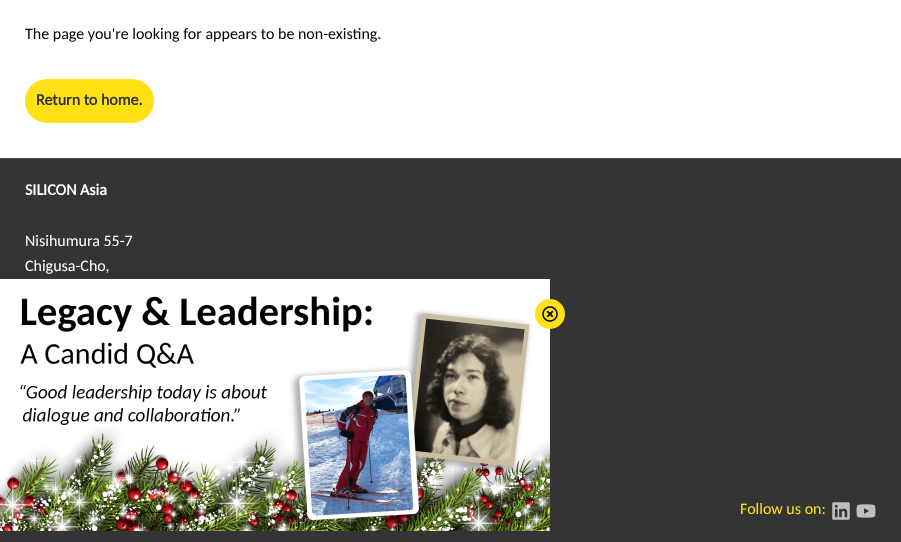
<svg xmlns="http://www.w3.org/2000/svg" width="901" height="542">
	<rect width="100%" height="100%" fill="#FFFFFF" />
	<text x="25" y="39" font-family="Carlito" font-size="16" fill="#000000">The page you're looking for appears to be non-existing.</text>
	<rect x="25" y="79" width="129" height="44" rx="22" fill="#FFE116" />
	<text x="36" y="105" font-family="Carlito" font-size="16" font-weight="700" fill="#343434">Return to home.</text>
	<rect x="0" y="159" width="901" height="383" fill="#343434" />
	<rect x="0" y="158" width="901" height="1" fill="#484848" />
	<text x="25" y="195" font-family="Carlito" font-size="16" font-weight="700" fill="#FFFFFF">SILICON Asia</text>
	<g font-family="Carlito" font-size="16" fill="#FFFFFF">
		<text x="25" y="246">Nisihumura 55-7</text>
		<text x="25" y="271">Chigusa-Cho,</text>
	</g>
	<text x="740" y="514" font-family="Carlito" font-size="16" fill="#FFE116">Follow us on:</text>
	<image x="832" y="502" width="18" height="18" href="assets/img1.png" />
	<image x="856" y="504" width="20" height="14" href="assets/img2.png" />
	<image x="0" y="279" width="550" height="252" href="assets/img3.png" />
	<circle cx="550" cy="314" r="15" fill="#FFE116" />
	<image x="542" y="306" width="16" height="16" href="assets/img4.png" />
</svg>
